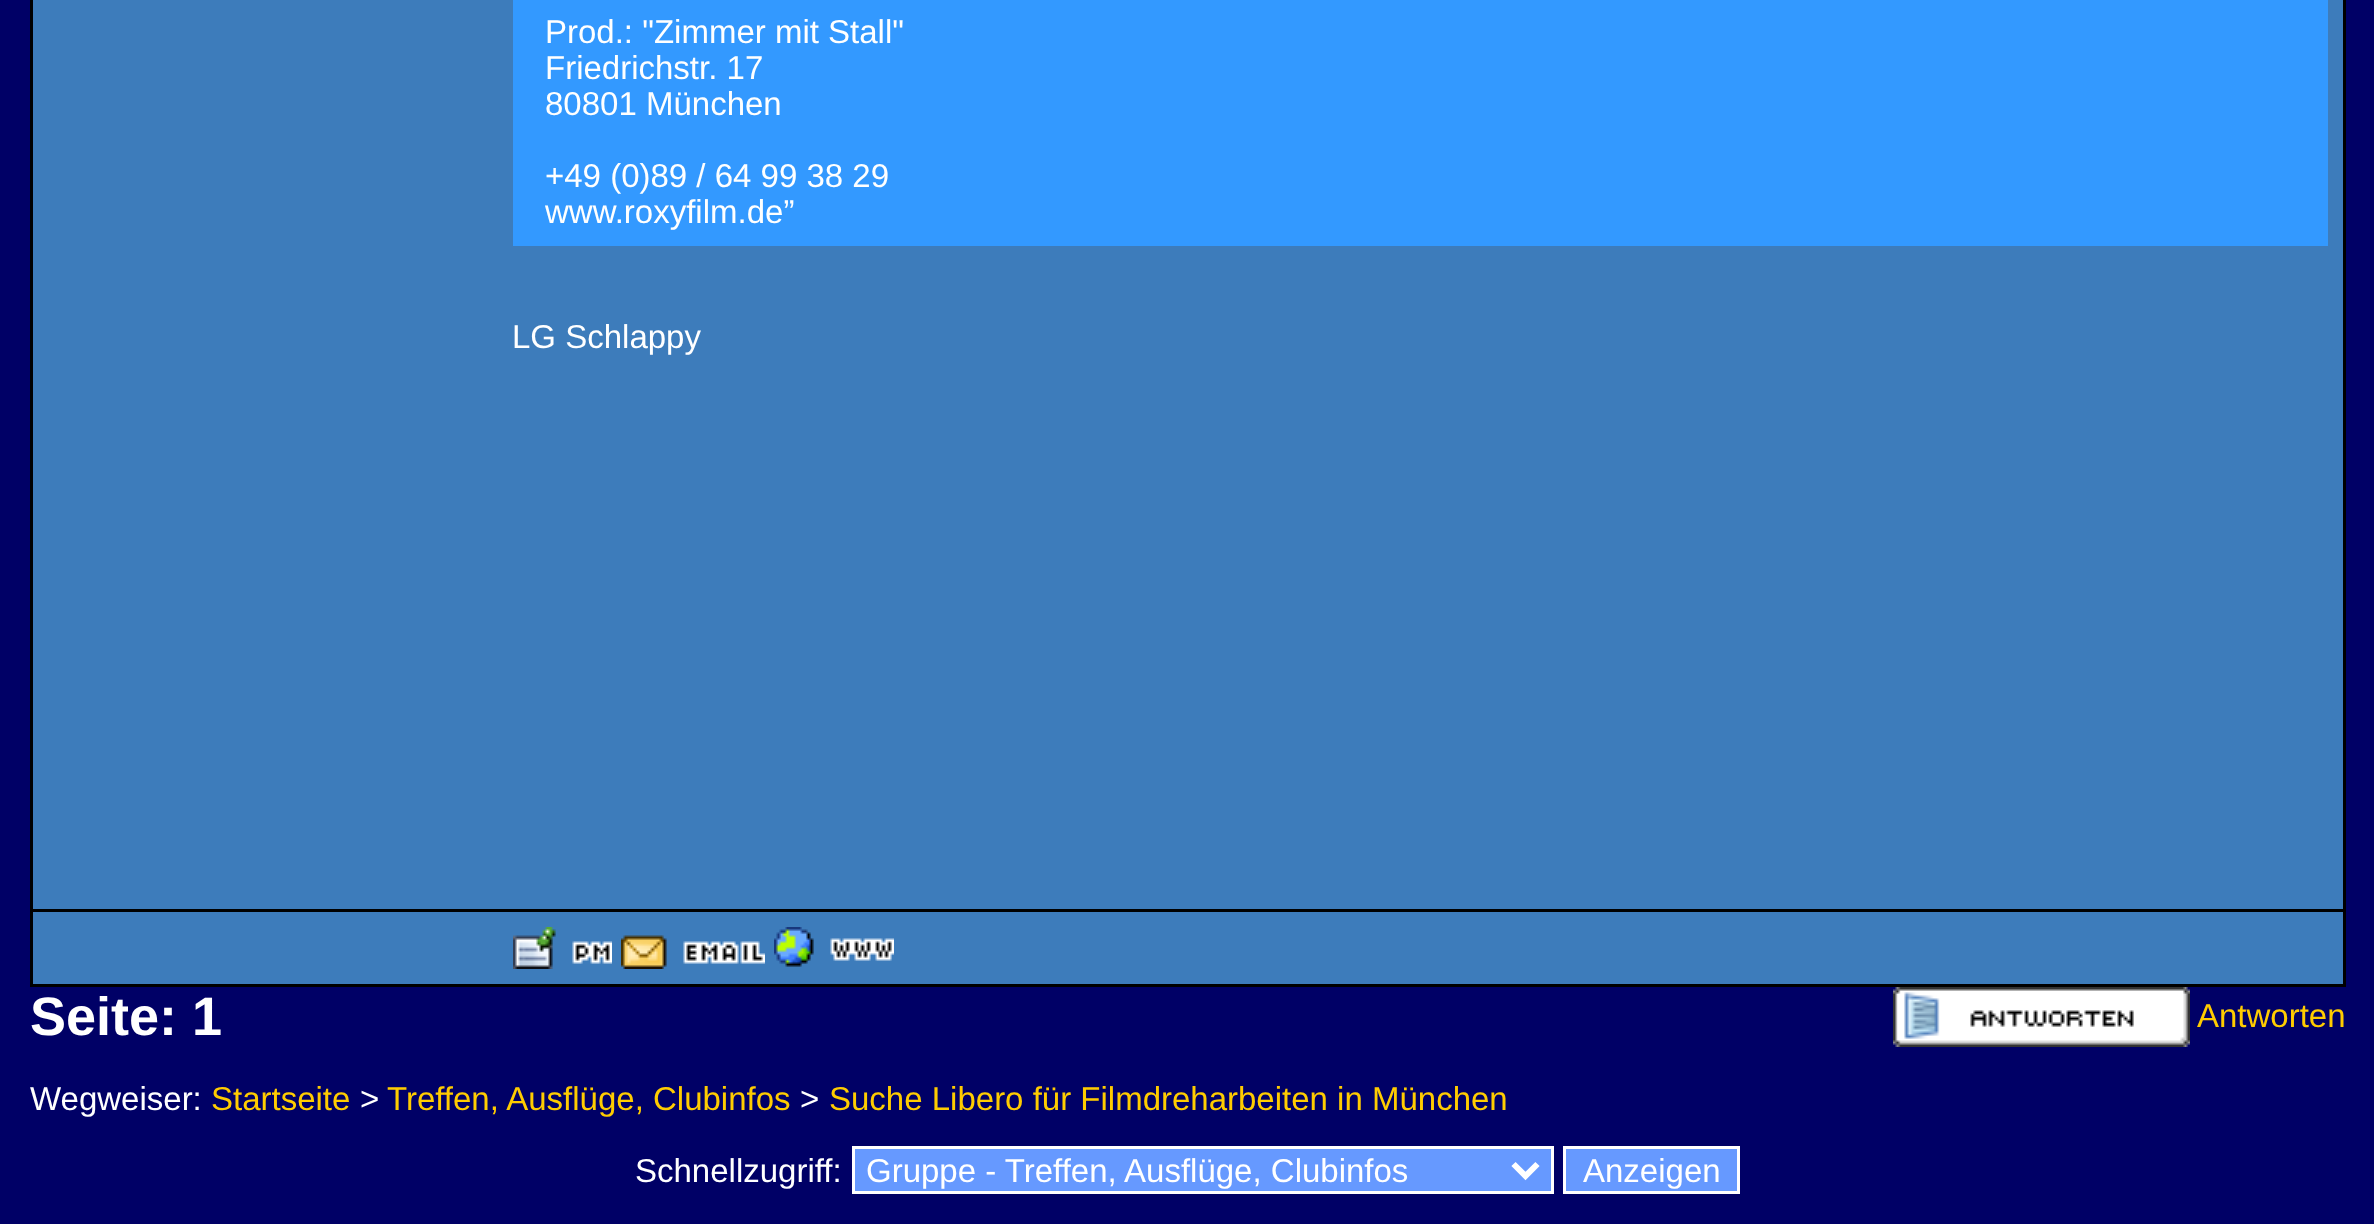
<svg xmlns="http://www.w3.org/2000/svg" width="2374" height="1224">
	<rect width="100%" height="100%" fill="#000066" />
	<rect x="30" y="0" width="2316" height="987" fill="#000000" />
	<rect x="33" y="0" width="2310" height="909" fill="#3D7CBB" />
	<rect x="513" y="0" width="1815" height="246" fill="#3399FF" />
	<g font-family="Liberation Sans" font-size="33" fill="#FFFFFF">
		<text x="545" y="43">Prod.: "Zimmer mit Stall"</text>
		<text x="545" y="79">Friedrichstr. 17</text>
		<text x="545" y="115">80801 München</text>
		<text x="545" y="187">+49 (0)89 / 64 99 38 29</text>
		<text x="545" y="223">www.roxyfilm.de”</text>
		<text x="512" y="348">LG Schlappy</text>
	</g>
	<rect x="33" y="912" width="2310" height="72" fill="#3D7CBB" />
	<image x="513" y="927" width="99" height="42" href="assets/img1.png" />
	<image x="621" y="935" width="144" height="34" href="assets/img2.png" />
	<image x="774" y="927" width="120" height="40" href="assets/img3.png" />
	<text x="30" y="1035" font-family="Liberation Sans" font-size="54" font-weight="700" fill="#FFFFFF">Seite: 1</text>
	<image x="1893" y="987" width="297" height="60" href="assets/img4.png" />
	<text x="2197" y="1027" font-family="Liberation Sans" font-size="33" fill="#FFCC00">Antworten</text>
	<text x="30" y="1110" font-family="Liberation Sans" font-size="33" fill="#FFFFFF">Wegweiser:</text>
	<text x="211" y="1110" font-family="Liberation Sans" font-size="33" fill="#FFCC00">Startseite</text>
	<text x="360" y="1110" font-family="Liberation Sans" font-size="33" fill="#FFFFFF">&gt;</text>
	<text x="387" y="1110" font-family="Liberation Sans" font-size="33" fill="#FFCC00">Treffen, Ausflüge, Clubinfos</text>
	<text x="800" y="1110" font-family="Liberation Sans" font-size="33" fill="#FFFFFF">&gt;</text>
	<text x="829" y="1110" font-family="Liberation Sans" font-size="33" fill="#FFCC00">Suche Libero für Filmdreharbeiten in München</text>
	<text x="635" y="1182" font-family="Liberation Sans" font-size="33" fill="#FFFFFF">Schnellzugriff:</text>
	<rect x="853.5" y="1147.5" width="699" height="45" fill="#6699FF" stroke="#FFFFFF" stroke-width="3" />
	<path d="M1513.5 1164L1525.5 1176L1537.5 1164" fill="none" stroke="#FFFFFF" stroke-width="6" />
	<text x="866" y="1182" font-family="Liberation Sans" font-size="33" fill="#FFFFFF">Gruppe - Treffen, Ausflüge, Clubinfos</text>
	<rect x="1564.5" y="1147.5" width="174" height="45" fill="#6699FF" stroke="#FFFFFF" stroke-width="3" />
	<text x="1583" y="1182" font-family="Liberation Sans" font-size="33" fill="#FFFFFF">Anzeigen</text>
</svg>
